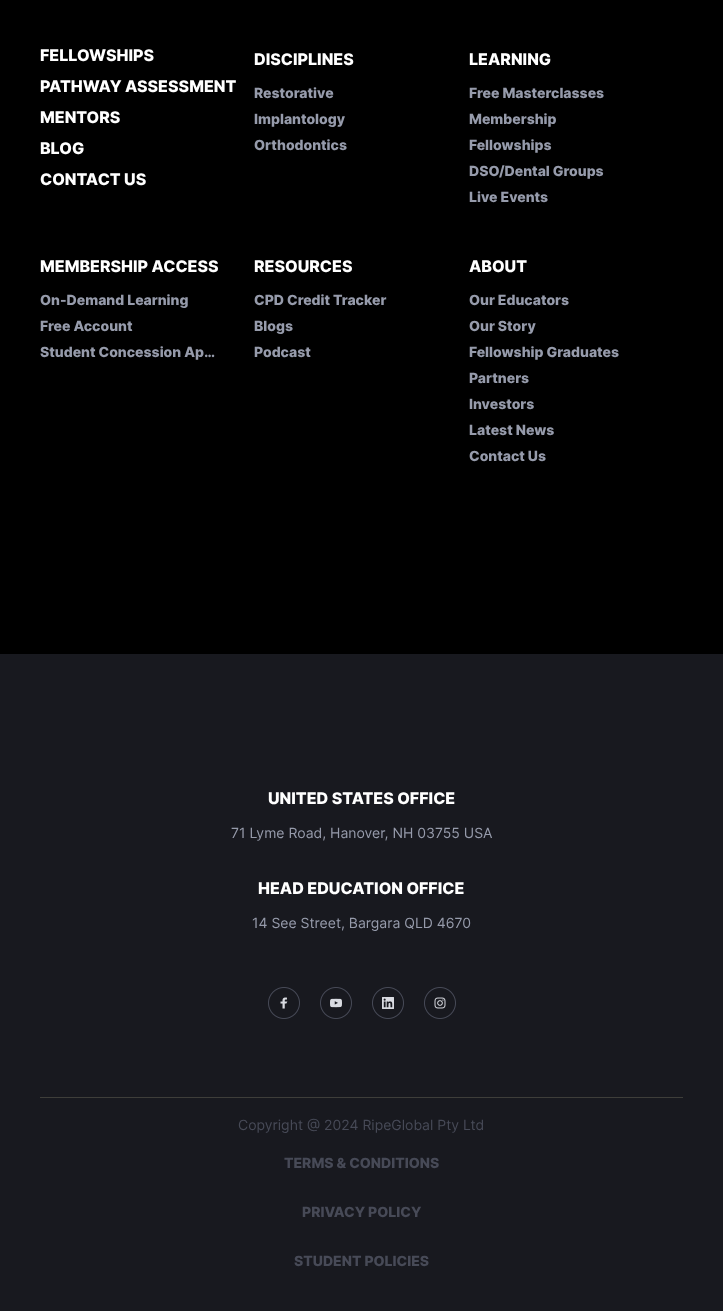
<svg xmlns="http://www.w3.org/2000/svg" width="723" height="1311">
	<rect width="100%" height="100%" fill="#000000" />
	<g font-family="Inter" font-size="16" font-weight="800" fill="#FFFFFF">
		<text x="40" y="61">FELLOWSHIPS</text>
		<text x="40" y="92">PATHWAY ASSESSMENT</text>
		<text x="40" y="123">MENTORS</text>
		<text x="40" y="154">BLOG</text>
		<text x="40" y="185">CONTACT US</text>
		<text x="254" y="65">DISCIPLINES</text>
	</g>
	<g font-family="Inter" font-size="14" font-weight="800" fill="#969BAB">
		<text x="254" y="98">Restorative</text>
		<text x="254" y="124">Implantology</text>
		<text x="254" y="150">Orthodontics</text>
	</g>
	<text x="469" y="65" font-family="Inter" font-size="16" font-weight="800" fill="#FFFFFF">LEARNING</text>
	<g font-family="Inter" font-size="14" font-weight="800" fill="#969BAB">
		<text x="469" y="98">Free Masterclasses</text>
		<text x="469" y="124">Membership</text>
		<text x="469" y="150">Fellowships</text>
		<text x="469" y="176">DSO/Dental Groups</text>
		<text x="469" y="202">Live Events</text>
	</g>
	<text x="40" y="272" font-family="Inter" font-size="16" font-weight="800" fill="#FFFFFF">MEMBERSHIP ACCESS</text>
	<g font-family="Inter" font-size="14" font-weight="800" fill="#969BAB">
		<text x="40" y="305">On-Demand Learning</text>
		<text x="40" y="331">Free Account</text>
		<text x="40" y="357">Student Concession Ap…</text>
	</g>
	<text x="254" y="272" font-family="Inter" font-size="16" font-weight="800" fill="#FFFFFF">RESOURCES</text>
	<g font-family="Inter" font-size="14" font-weight="800" fill="#969BAB">
		<text x="254" y="305">CPD Credit Tracker</text>
		<text x="254" y="331">Blogs</text>
		<text x="254" y="357">Podcast</text>
	</g>
	<text x="469" y="272" font-family="Inter" font-size="16" font-weight="800" fill="#FFFFFF">ABOUT</text>
	<g font-family="Inter" font-size="14" font-weight="800" fill="#969BAB">
		<text x="469" y="305">Our Educators</text>
		<text x="469" y="331">Our Story</text>
		<text x="469" y="357">Fellowship Graduates</text>
		<text x="469" y="383">Partners</text>
		<text x="469" y="409">Investors</text>
		<text x="469" y="435">Latest News</text>
		<text x="469" y="461">Contact Us</text>
	</g>
	<rect x="0" y="654" width="723" height="657" fill="#18191F" />
	<text x="268" y="804" font-family="Inter" font-size="16" font-weight="800" fill="#FFFFFF">UNITED STATES OFFICE</text>
	<text x="231" y="838" font-family="Inter" font-size="14" fill="#969BAB">71 Lyme Road, Hanover, NH 03755 USA</text>
	<text x="258" y="894" font-family="Inter" font-size="16" font-weight="800" fill="#FFFFFF">HEAD EDUCATION OFFICE</text>
	<text x="252" y="928" font-family="Inter" font-size="14" fill="#969BAB">14 See Street, Bargara QLD 4670</text>
	<image x="268" y="987" width="32" height="32" href="assets/img1.png" />
	<image x="320" y="987" width="32" height="32" href="assets/img2.png" />
	<image x="372" y="987" width="32" height="32" href="assets/img3.png" />
	<image x="424" y="987" width="32" height="32" href="assets/img4.png" />
	<rect x="40" y="1097" width="643" height="1" fill="#3E3E3A" />
	<text x="238" y="1130" font-family="Inter" font-size="14" fill="#474A57">Copyright @ 2024 RipeGlobal Pty Ltd</text>
	<g font-family="Inter" font-size="14" font-weight="800" fill="#474A57">
		<text x="284" y="1168">TERMS &amp; CONDITIONS</text>
		<text x="302" y="1217">PRIVACY POLICY</text>
		<text x="294" y="1266">STUDENT POLICIES</text>
	</g>
</svg>
